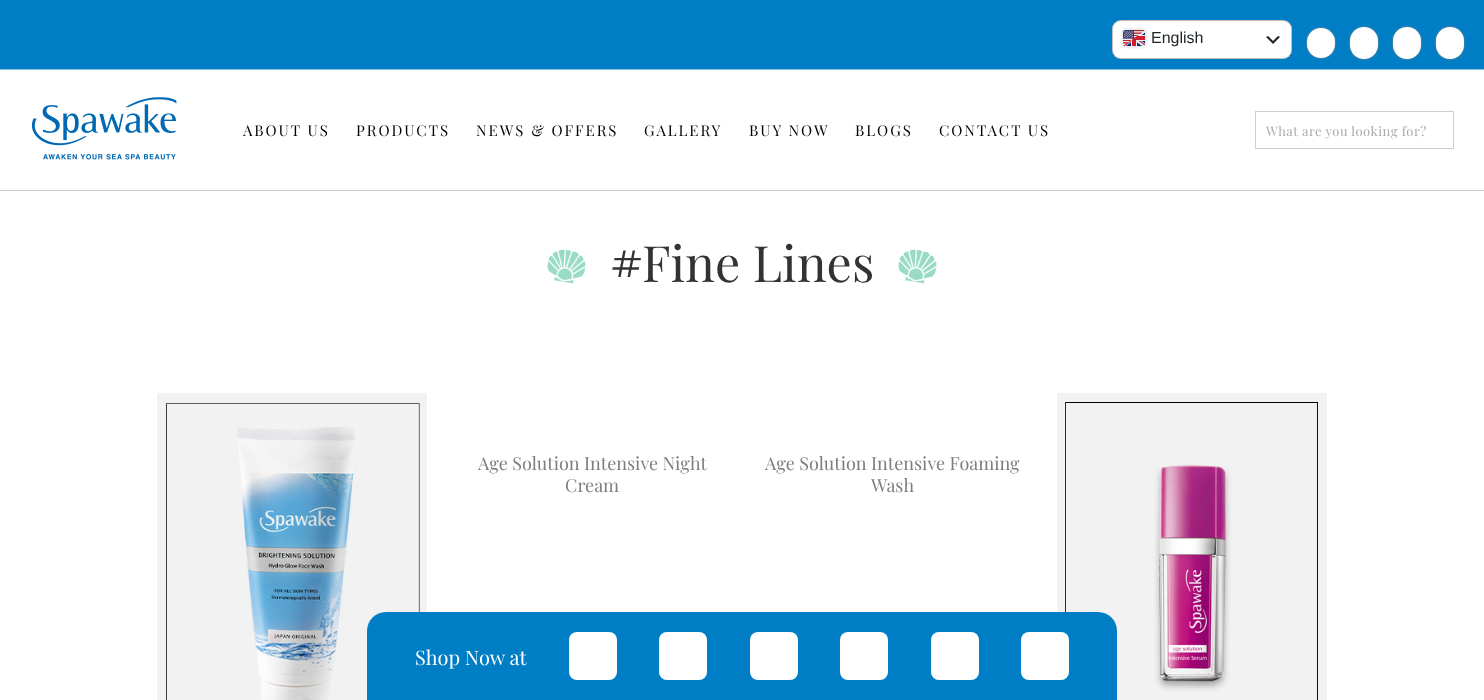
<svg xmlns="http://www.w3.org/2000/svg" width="1484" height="700">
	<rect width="100%" height="100%" fill="#FFFFFF" />
	<rect x="0" y="190" width="1484" height="1" fill="#CCCCCC" />
	<rect x="0" y="0" width="1484" height="69" fill="#007EC5" />
	<rect x="0" y="69" width="1484" height="1" fill="#80BFE2" />
	<rect x="1112" y="20" width="180" height="39" rx="9" fill="#FFFFFF" />
	<rect x="1112.5" y="20.5" width="179" height="38" rx="8.5" fill="none" stroke="#000000" stroke-opacity="0.25" />
	<image x="1266" y="36" width="14" height="8" href="assets/img1.png" />
	<image x="1120" y="27" width="28" height="22" href="assets/img2.png" />
	<text x="1151" y="43" font-family="Liberation Sans" font-size="16" fill="#1D2327">English</text>
	<rect x="1307" y="28" width="28" height="30" rx="14" fill="#888888" filter="blur(1px)" />
	<rect x="1307" y="28" width="28" height="30" rx="14" fill="#FFFFFF" />
	<rect x="1350" y="27" width="28" height="32" rx="14" fill="#888888" filter="blur(1px)" />
	<rect x="1350" y="27" width="28" height="32" rx="14" fill="#FFFFFF" />
	<rect x="1393" y="27" width="28" height="32" rx="14" fill="#888888" filter="blur(1px)" />
	<rect x="1393" y="27" width="28" height="32" rx="14" fill="#FFFFFF" />
	<rect x="1436" y="27" width="28" height="32" rx="14" fill="#888888" filter="blur(1px)" />
	<rect x="1436" y="27" width="28" height="32" rx="14" fill="#FFFFFF" />
	<image x="32" y="97" width="145" height="63" href="assets/img3.png" />
	<g font-family="Playfair Display" font-size="15" letter-spacing="2" fill="#000000">
		<text x="243" y="136">ABOUT US</text>
		<text x="356" y="136">PRODUCTS</text>
		<text x="476" y="136">NEWS &amp; OFFERS</text>
		<text x="644" y="136">GALLERY</text>
		<text x="749" y="136">BUY NOW</text>
		<text x="855" y="136">BLOGS</text>
		<text x="939" y="136">CONTACT US</text>
	</g>
	<rect x="1255.5" y="111.5" width="198" height="37" fill="none" stroke="#D0CFCE" />
	<text x="1266" y="136" font-family="Playfair Display" font-size="13" letter-spacing="0.5" fill="#ABABAB">What are you looking for?</text>
	<image x="547" y="249" width="39" height="35" href="assets/img4.png" />
	<text x="610" y="282" font-family="Playfair Display" font-size="50" font-weight="700" fill="#333333">#</text>
	<text x="642" y="282" font-family="Playfair Display" font-size="50" fill="#333333">Fine Lines</text>
	<image x="898" y="249" width="39" height="35" href="assets/img4.png" />
	<image x="157" y="393" width="270" height="307" href="assets/img5.png" />
	<g font-family="Playfair Display" font-size="18" fill="#7E7E7E">
		<text x="478" y="470">Age Solution Intensive Night</text>
		<text x="565" y="492">Cream</text>
		<text x="765" y="470">Age Solution Intensive Foaming</text>
		<text x="871" y="492">Wash</text>
	</g>
	<image x="1057" y="393" width="270" height="307" href="assets/img6.png" />
	<path d="M386 612H1098C1108.5 612 1117 620.5 1117 631V700H367V631C367 620.5 375.5 612 386 612Z" fill="#007EC5" />
	<text x="415" y="665" font-family="Playfair Display" font-size="20" fill="#FFFFFF">Shop Now at</text>
	<rect x="569" y="632" width="48" height="48" rx="8" fill="#FFFFFF" />
	<rect x="659" y="632" width="48" height="48" rx="8" fill="#FFFFFF" />
	<rect x="750" y="632" width="48" height="48" rx="8" fill="#FFFFFF" />
	<rect x="840" y="632" width="48" height="48" rx="8" fill="#FFFFFF" />
	<rect x="931" y="632" width="48" height="48" rx="8" fill="#FFFFFF" />
	<rect x="1021" y="632" width="48" height="48" rx="8" fill="#FFFFFF" />
</svg>
